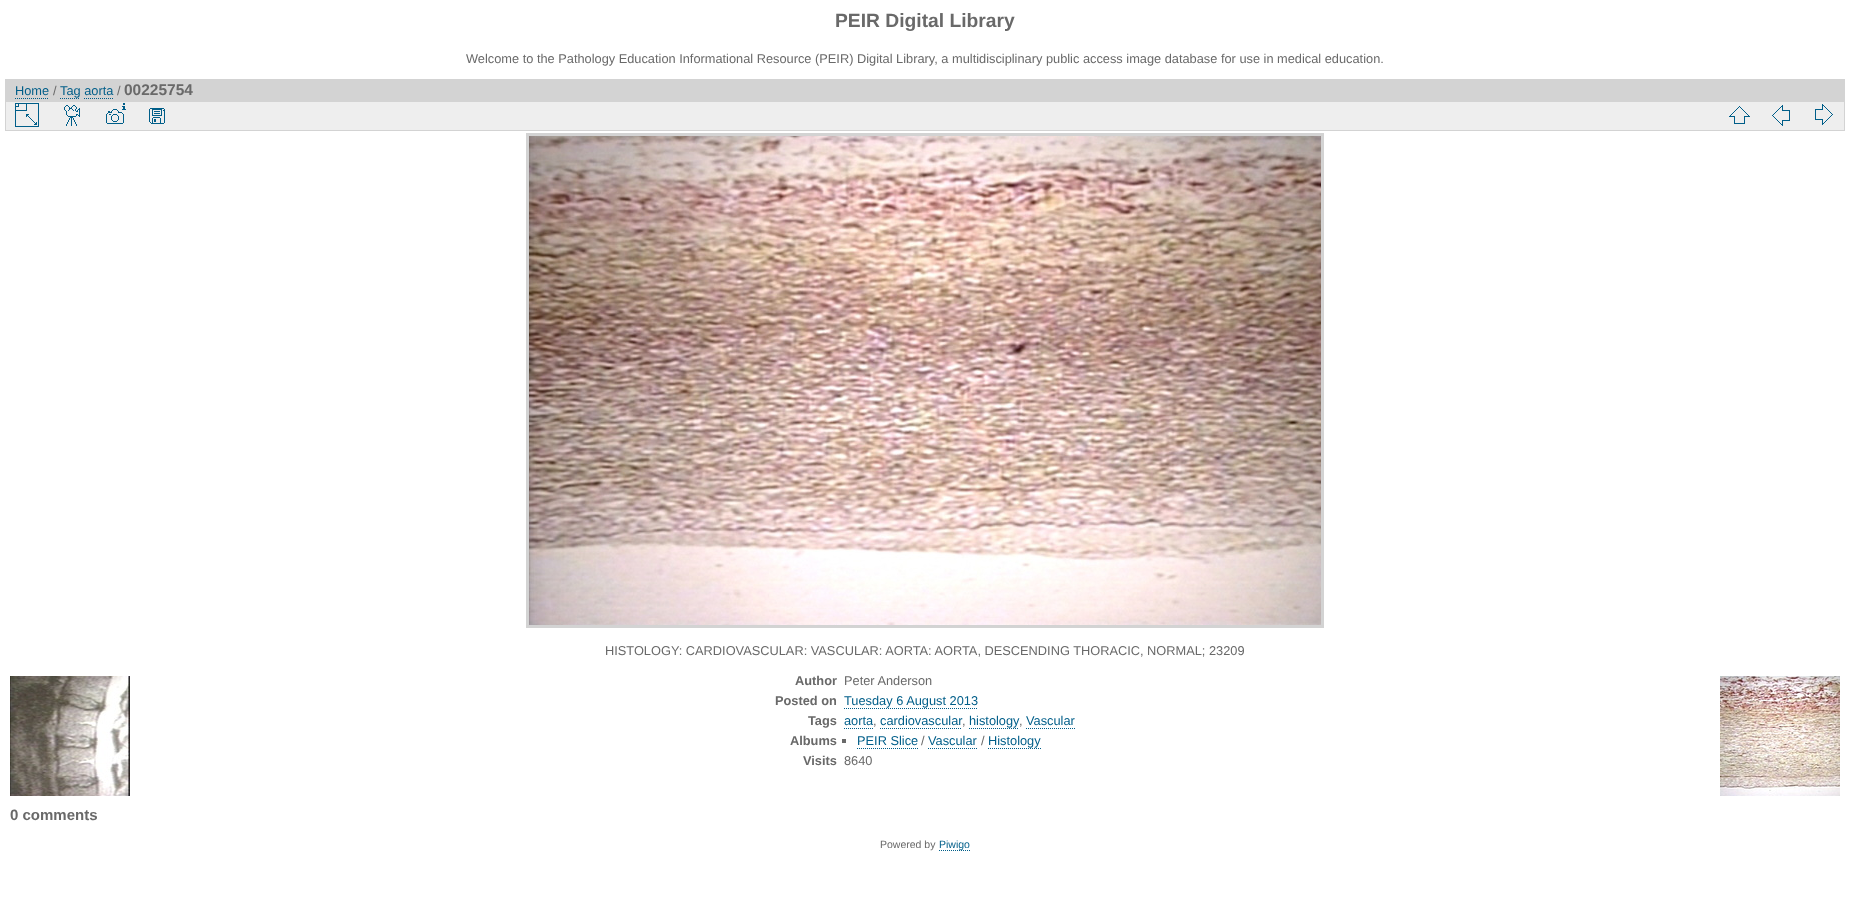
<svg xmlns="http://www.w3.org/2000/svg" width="1850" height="915">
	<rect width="100%" height="100%" fill="#FFFFFF" />
	<text x="835" y="27" font-family="Liberation Sans" font-size="19.25" font-weight="700" fill="#696969">PEIR Digital Library</text>
	<text x="466" y="63" font-family="Liberation Sans" font-size="12.8" fill="#696969">Welcome to the Pathology Education Informational Resource (PEIR) Digital Library, a multidisciplinary public access image database for use in medical education.</text>
	<rect x="5" y="79" width="1840" height="22" fill="#D3D3D3" />
	<text x="15" y="95" font-family="Liberation Sans" font-size="12.8" fill="#005E89">Home</text>
	<path d="M15 98.5H49" fill="none" stroke="#005E89" stroke-dasharray="1 1" />
	<text x="53" y="95" font-family="Liberation Sans" font-size="12.8" fill="#696969">/</text>
	<text x="60" y="95" font-family="Liberation Sans" font-size="12.8" fill="#005E89">Tag aorta</text>
	<path d="M60 98.5H80" fill="none" stroke="#005E89" stroke-dasharray="1 1" />
	<text x="117" y="95" font-family="Liberation Sans" font-size="12.8" fill="#696969">/</text>
	<text x="124" y="95" font-family="Liberation Sans" font-size="15.5" font-weight="700" fill="#696969">00225754</text>
	<path d="M84 98.5H113" fill="none" stroke="#005E89" stroke-dasharray="1 1" />
	<rect x="5.5" y="101.5" width="1839" height="29" fill="#EEEEEE" stroke="#D3D3D3" />
	<image x="15" y="103" width="24" height="24" href="assets/img1.png" />
	<image x="64" y="105" width="16" height="21" href="assets/img2.png" />
	<image x="106" y="103" width="20" height="21" href="assets/img3.png" />
	<image x="149" y="108" width="16" height="16" href="assets/img4.png" />
	<image x="1729" y="106" width="21" height="18" href="assets/img5.png" />
	<image x="1772" y="105" width="18" height="21" href="assets/img6.png" />
	<image x="1815" y="104" width="18" height="21" href="assets/img7.png" />
	<rect x="527.5" y="134.5" width="795" height="492" fill="none" stroke="#D3D3D3" stroke-width="3" />
	<image x="529" y="136" width="792" height="489" href="assets/img8.png" />
	<text x="605" y="655" font-family="Liberation Sans" font-size="12.8" fill="#696969">HISTOLOGY: CARDIOVASCULAR: VASCULAR: AORTA: AORTA, DESCENDING THORACIC, NORMAL; 23209</text>
	<text x="795" y="685" font-family="Liberation Sans" font-size="12.8" font-weight="700" fill="#696969">Author</text>
	<text x="844" y="685" font-family="Liberation Sans" font-size="12.8" fill="#696969">Peter Anderson</text>
	<text x="775" y="705" font-family="Liberation Sans" font-size="12.8" font-weight="700" fill="#696969">Posted on</text>
	<text x="844" y="705" font-family="Liberation Sans" font-size="12.8" fill="#005E89">Tuesday 6 August 2013</text>
	<path d="M844 708.5H978" fill="none" stroke="#005E89" stroke-dasharray="1 1" />
	<text x="808" y="725" font-family="Liberation Sans" font-size="12.8" font-weight="700" fill="#696969">Tags</text>
	<text x="844" y="725" font-family="Liberation Sans" font-size="12.8" fill="#005E89">aorta</text>
	<path d="M844 728.5H873" fill="none" stroke="#005E89" stroke-dasharray="1 1" />
	<text x="873" y="725" font-family="Liberation Sans" font-size="12.8" fill="#696969">,</text>
	<text x="880" y="725" font-family="Liberation Sans" font-size="12.8" fill="#005E89">cardiovascular</text>
	<path d="M880 728.5H962" fill="none" stroke="#005E89" stroke-dasharray="1 1" />
	<text x="962" y="725" font-family="Liberation Sans" font-size="12.8" fill="#696969">,</text>
	<text x="969" y="725" font-family="Liberation Sans" font-size="12.8" fill="#005E89">histology</text>
	<path d="M969 728.5H1019" fill="none" stroke="#005E89" stroke-dasharray="1 1" />
	<text x="1026" y="725" font-family="Liberation Sans" font-size="12.8" fill="#005E89">Vascular</text>
	<path d="M1026 728.5H1075" fill="none" stroke="#005E89" stroke-dasharray="1 1" />
	<text x="1019" y="725" font-family="Liberation Sans" font-size="12.8" fill="#696969">,</text>
	<text x="790" y="745" font-family="Liberation Sans" font-size="12.8" font-weight="700" fill="#696969">Albums</text>
	<rect x="842" y="739" width="4" height="4" fill="#696969" />
	<text x="857" y="745" font-family="Liberation Sans" font-size="12.8" fill="#005E89">PEIR Slice</text>
	<path d="M857 748.5H918" fill="none" stroke="#005E89" stroke-dasharray="1 1" />
	<text x="921" y="745" font-family="Liberation Sans" font-size="12.8" fill="#696969">/</text>
	<text x="928" y="745" font-family="Liberation Sans" font-size="12.8" fill="#005E89">Vascular</text>
	<path d="M928 748.5H977" fill="none" stroke="#005E89" stroke-dasharray="1 1" />
	<text x="981" y="745" font-family="Liberation Sans" font-size="12.8" fill="#696969">/</text>
	<text x="988" y="745" font-family="Liberation Sans" font-size="12.8" fill="#005E89">Histology</text>
	<path d="M988 748.5H1041" fill="none" stroke="#005E89" stroke-dasharray="1 1" />
	<text x="803" y="765" font-family="Liberation Sans" font-size="12.8" font-weight="700" fill="#696969">Visits</text>
	<text x="844" y="765" font-family="Liberation Sans" font-size="12.8" fill="#696969">8640</text>
	<image x="10" y="676" width="120" height="120" href="assets/img9.png" />
	<image x="1720" y="676" width="120" height="120" href="assets/img10.png" />
	<text x="10" y="820" font-family="Liberation Sans" font-size="15" font-weight="700" fill="#696969">0 comments</text>
	<text x="880" y="848" font-family="Liberation Sans" font-size="10.5" fill="#696969">Powered by</text>
	<path d="M939 850.5H970" fill="none" stroke="#005E89" stroke-dasharray="1 1" />
	<text x="939" y="848" font-family="Liberation Sans" font-size="10.5" fill="#005E89">Piwigo</text>
</svg>
